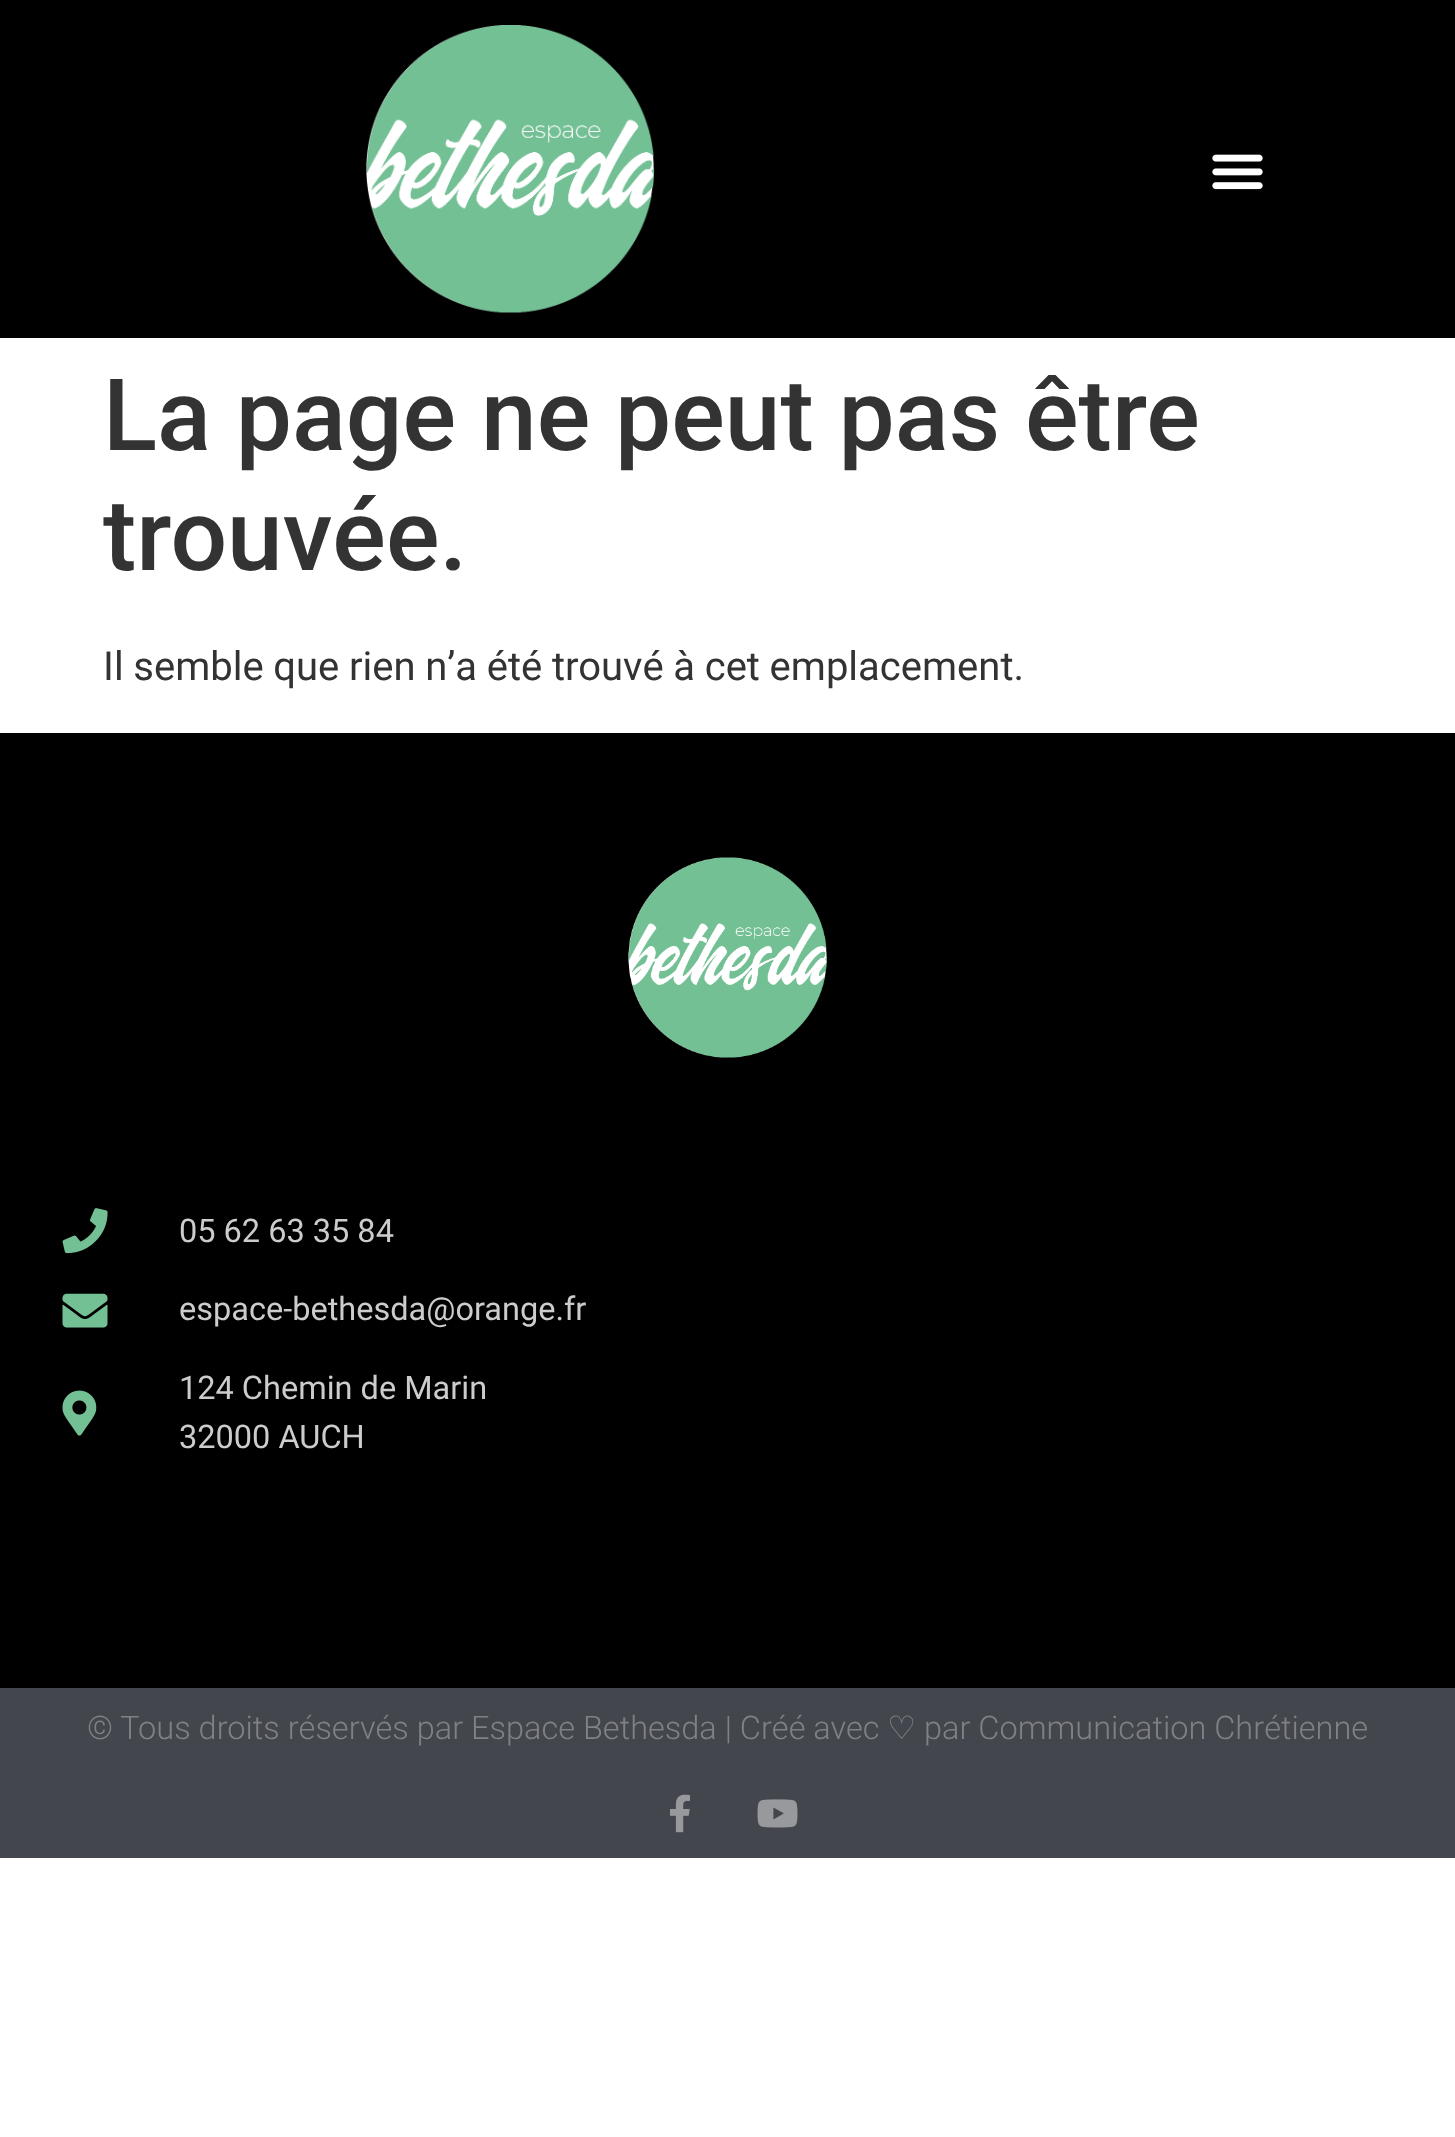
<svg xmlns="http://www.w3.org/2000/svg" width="1455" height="2137">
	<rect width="100%" height="100%" fill="#FFFFFF" />
	<rect x="0" y="0" width="1455" height="338" fill="#000000" />
	<image x="366" y="25" width="289" height="288" href="assets/img1.png" />
	<image x="1212" y="154" width="51" height="36" href="assets/img2.png" />
	<g font-family="Roboto" font-size="100" font-weight="500" fill="#333333">
		<text x="103" y="450">La page ne peut pas être</text>
		<text x="103" y="570">trouvée.</text>
	</g>
	<text x="103" y="680" word-spacing="-0.25" font-family="Roboto" font-size="40" fill="#333333">Il semble que rien n’a été trouvé à cet emplacement.</text>
	<rect x="0" y="733" width="1455" height="955" fill="#000000" />
	<image x="628" y="857" width="200" height="201" href="assets/img3.png" />
	<image x="62" y="1208" width="46" height="46" href="assets/img4.png" />
	<text x="179" y="1242" font-family="Roboto" font-size="32.5" fill="#CCCCCC">05 62 63 35 84</text>
	<image x="62" y="1293" width="46" height="35" href="assets/img5.png" />
	<text x="179" y="1320" font-family="Roboto" font-size="32.5" fill="#CCCCCC">espace-bethesda@orange.fr</text>
	<image x="62" y="1390" width="35" height="46" href="assets/img6.png" />
	<g font-family="Roboto" font-size="32.5" fill="#CCCCCC">
		<text x="179" y="1399">124 Chemin de Marin</text>
		<text x="179" y="1448">32000 AUCH</text>
	</g>
	<rect x="0" y="1688" width="1455" height="170" fill="#43464C" />
	<text x="87" y="1739" font-family="Roboto" font-size="32.5" font-weight="300" fill="#7F8185">© Tous droits réservés par Espace Bethesda | Créé avec</text>
	<text x="887" y="1739" font-family="DejaVu Sans" font-size="32.5" fill="#7F8185">♡</text>
	<text x="924" y="1739" font-family="Roboto" font-size="32.5" font-weight="300" fill="#7F8185">par Communication Chrétienne</text>
	<image x="670" y="1794" width="20" height="39" href="assets/img7.png" />
	<image x="757" y="1799" width="41" height="29" href="assets/img8.png" />
</svg>
